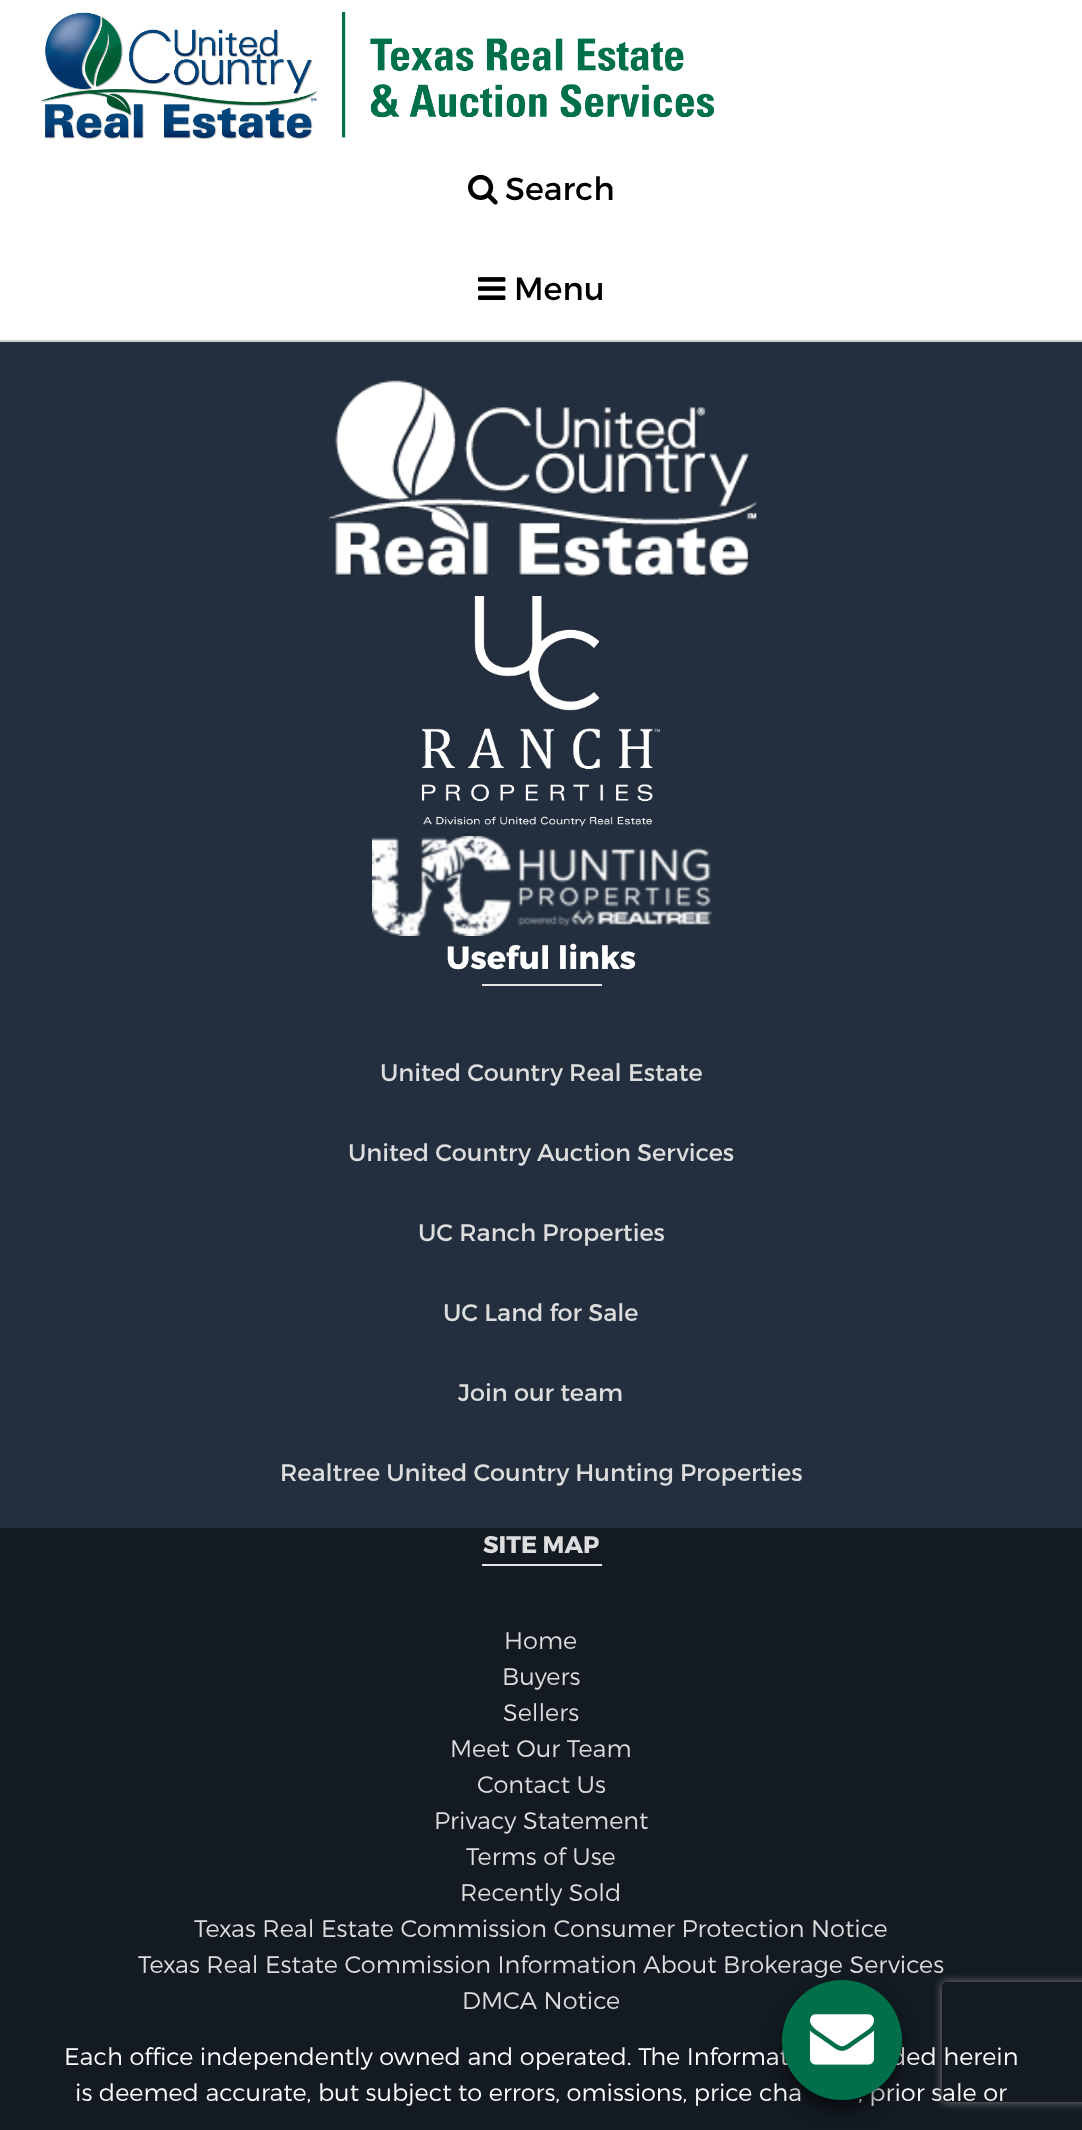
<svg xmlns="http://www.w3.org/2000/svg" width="1082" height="2130">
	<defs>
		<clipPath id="clip1"><path d="M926 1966H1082V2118H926ZM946 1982H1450C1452 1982 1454 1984 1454 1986V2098C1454 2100 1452 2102 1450 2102H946C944 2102 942 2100 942 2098V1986C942 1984 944 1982 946 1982Z" clip-rule="evenodd" /></clipPath>
	</defs>
	<rect width="100%" height="100%" fill="#232F3E" />
	<rect x="0" y="0" width="1082" height="340" fill="#FFFFFF" />
	<rect x="0" y="340" width="1082" height="2" fill="#CCCCCC" />
	<image x="40" y="12" width="674" height="128" href="assets/img1.png" />
	<image x="468" y="174" width="30" height="31" href="assets/img2.png" />
	<text x="505" y="200" font-family="Montserrat" font-size="32" fill="#000000">Search</text>
	<image x="478" y="277" width="28" height="23" href="assets/img3.png" />
	<text x="514" y="300" font-family="Montserrat" font-size="32" fill="#000000">Menu</text>
	<image x="328" y="380" width="430" height="197" href="assets/img4.png" />
	<image x="422" y="596" width="238" height="230" href="assets/img5.png" />
	<image x="372" y="836" width="340" height="100" href="assets/img6.png" />
	<text x="446" y="969" font-family="Montserrat" font-size="32" font-weight="700" fill="#FFFFFF">Useful links</text>
	<rect x="482" y="984" width="120" height="2" fill="#E6E6E6" />
	<g font-family="Montserrat" font-size="24" fill="#DDDDDD">
		<text x="380" y="1081">United Country Real Estate</text>
		<text x="348" y="1161">United Country Auction Services</text>
		<text x="418" y="1241">UC Ranch Properties</text>
		<text x="443" y="1321">UC Land for Sale</text>
		<text x="458" y="1401">Join our team</text>
		<text x="280" y="1481">Realtree United Country Hunting Properties</text>
	</g>
	<rect x="0" y="1528" width="1082" height="602" fill="#131A22" />
	<text x="483" y="1553" font-family="Montserrat" font-size="24" font-weight="700" fill="#DDDDDD">SITE MAP</text>
	<rect x="482" y="1564" width="120" height="2" fill="#E6E6E6" />
	<g font-family="Montserrat" font-size="24" font-weight="300" fill="#DDDDDD">
		<text x="504" y="1649">Home</text>
		<text x="502" y="1685">Buyers</text>
		<text x="503" y="1721">Sellers</text>
		<text x="450" y="1757">Meet Our Team</text>
		<text x="477" y="1793">Contact Us</text>
		<text x="434" y="1829">Privacy Statement</text>
		<text x="466" y="1865">Terms of Use</text>
		<text x="460" y="1901">Recently Sold</text>
		<text x="194" y="1937">Texas Real Estate Commission Consumer Protection Notice</text>
		<text x="138" y="1973">Texas Real Estate Commission Information About Brokerage Services</text>
		<text x="462" y="2009">DMCA Notice</text>
	</g>
	<g font-family="Montserrat" font-size="24" font-weight="300" fill="#FFFFFF">
		<text x="64" y="2065">Each office independently owned and operated. The Informat</text>
		<text x="890" y="2065">ded herein</text>
		<text x="75" y="2101">is deemed accurate, but subject to errors, omissions, price cha</text>
		<text x="858" y="2101">, prior sale or</text>
	</g>
	<rect x="782" y="1990" width="120" height="120" rx="60" fill="#000000" fill-opacity="0.5" filter="blur(8px)" />
	<circle cx="842" cy="2040" r="60" fill="#016F4A" />
	<image x="810" y="2014" width="64" height="51" href="assets/img7.png" />
	<g clip-path="url(#clip1)">
		<rect x="942" y="1982" width="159" height="120" rx="4" fill="#808080" filter="blur(5px)" />
	</g>
</svg>
